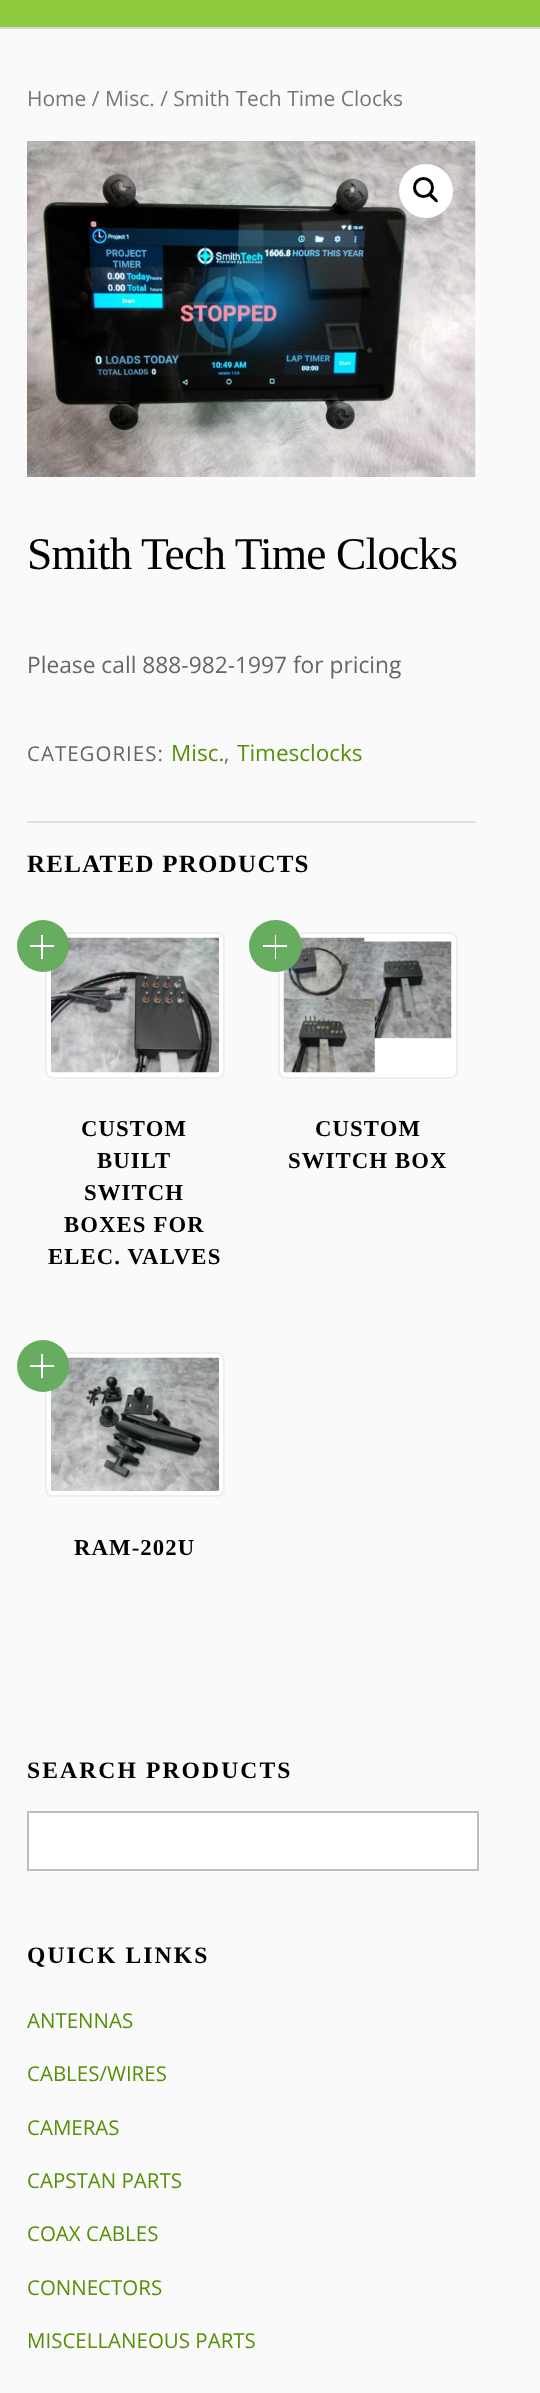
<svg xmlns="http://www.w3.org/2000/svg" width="540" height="2393">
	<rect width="100%" height="100%" fill="#FAFAFA" />
	<rect x="0" y="0" width="540" height="27" fill="#8FCA3F" />
	<rect x="0" y="27" width="540" height="2" fill="#D6D6D6" />
	<text x="27" y="106" font-family="Open Sans" font-size="21" fill="#767676">Home / Misc. / Smith Tech Time Clocks</text>
	<image x="27" y="141" width="449" height="336" href="assets/img1.png" />
	<circle cx="426" cy="191" r="27" fill="#FFFFFF" />
	<circle cx="423.5" cy="187.5" r="9" fill="none" stroke="#000000" stroke-width="3" />
	<path d="M429 193.5C430.5 191.5 433.5 195.5 434.5 196.5C435 197.5 439 200 437.5 202C436 203.5 433 199.5 432 198.5C431 198 427.5 195 429 193.5Z" fill="#000000" />
	<text x="27" y="569" font-family="Liberation Serif" font-size="45.5" letter-spacing="-0.9" fill="#000000">Smith Tech Time Clocks</text>
	<text x="27" y="673" font-family="Open Sans" font-size="22.75" fill="#666666">Please call 888-982-1997 for pricing</text>
	<text x="27" y="761" font-family="Open Sans" font-size="20.5" letter-spacing="1" fill="#666666">CATEGORIES:</text>
	<text x="171" y="761" font-family="Open Sans" font-size="22.5" fill="#569008">Misc.</text>
	<text x="224" y="761" font-family="Open Sans" font-size="20.5" letter-spacing="1" fill="#666666">,</text>
	<text x="237" y="761" font-family="Open Sans" font-size="22.5" fill="#569008">Timesclocks</text>
	<rect x="27" y="821" width="449" height="2" fill="#E1E1E1" />
	<text x="27" y="872" font-family="Liberation Serif" font-size="25" font-weight="700" letter-spacing="1.25" fill="#000000">RELATED PRODUCTS</text>
	<rect x="46" y="933" width="178" height="145" rx="7" fill="#FFFFFF" stroke="#EEEEEE" stroke-width="2" />
	<image x="51" y="937" width="168" height="136" href="assets/img2.png" />
	<circle cx="43" cy="946" r="26" fill="#66AD5F" />
	<rect x="30" y="945" width="24" height="2" fill="#FFFFFF" />
	<rect x="41" y="935" width="2" height="24" fill="#FFFFFF" />
	<g font-family="Liberation Serif" font-size="22.75" font-weight="700" letter-spacing="1.1" fill="#000000">
		<text x="81" y="1136">CUSTOM</text>
		<text x="97" y="1168">BUILT</text>
		<text x="84" y="1200">SWITCH</text>
		<text x="64" y="1232">BOXES FOR</text>
		<text x="48" y="1264">ELEC. VALVES</text>
	</g>
	<rect x="279" y="933" width="178" height="145" rx="7" fill="#FFFFFF" stroke="#EEEEEE" stroke-width="2" />
	<image x="283" y="937" width="169" height="136" href="assets/img3.png" />
	<rect x="249" y="920" width="53" height="52" rx="26" fill="#66AD5F" />
	<rect x="263" y="945" width="24" height="2" fill="#FFFFFF" />
	<rect x="275" y="935" width="1" height="24" fill="#FFFFFF" />
	<g font-family="Liberation Serif" font-size="22.75" font-weight="700" letter-spacing="1.1" fill="#000000">
		<text x="315" y="1136">CUSTOM</text>
		<text x="288" y="1168">SWITCH BOX</text>
	</g>
	<rect x="46" y="1353" width="178" height="143" rx="7" fill="#FFFFFF" stroke="#EEEEEE" stroke-width="2" />
	<image x="51" y="1357" width="168" height="134" href="assets/img4.png" />
	<circle cx="43" cy="1366" r="26" fill="#66AD5F" />
	<rect x="30" y="1365" width="24" height="2" fill="#FFFFFF" />
	<rect x="41" y="1354" width="2" height="24" fill="#FFFFFF" />
	<text x="74" y="1555" font-family="Liberation Serif" font-size="22.75" font-weight="700" letter-spacing="1.1" fill="#000000">RAM-202U</text>
	<text x="27" y="1778" font-family="Liberation Serif" font-size="23.6" font-weight="700" letter-spacing="2.1" fill="#000000">SEARCH PRODUCTS</text>
	<rect x="28" y="1812" width="450" height="58" fill="#FFFFFF" stroke="#BDBDBD" stroke-width="2" />
	<text x="27" y="1963" font-family="Liberation Serif" font-size="23.6" font-weight="700" letter-spacing="2.1" fill="#000000">QUICK LINKS</text>
	<g font-family="Open Sans" font-size="20.5" fill="#569008">
		<text x="27" y="2028">ANTENNAS</text>
		<text x="27" y="2081">CABLES/WIRES</text>
		<text x="27" y="2135">CAMERAS</text>
		<text x="27" y="2188">CAPSTAN PARTS</text>
		<text x="27" y="2241">COAX CABLES</text>
		<text x="27" y="2295">CONNECTORS</text>
		<text x="27" y="2348">MISCELLANEOUS PARTS</text>
	</g>
</svg>
